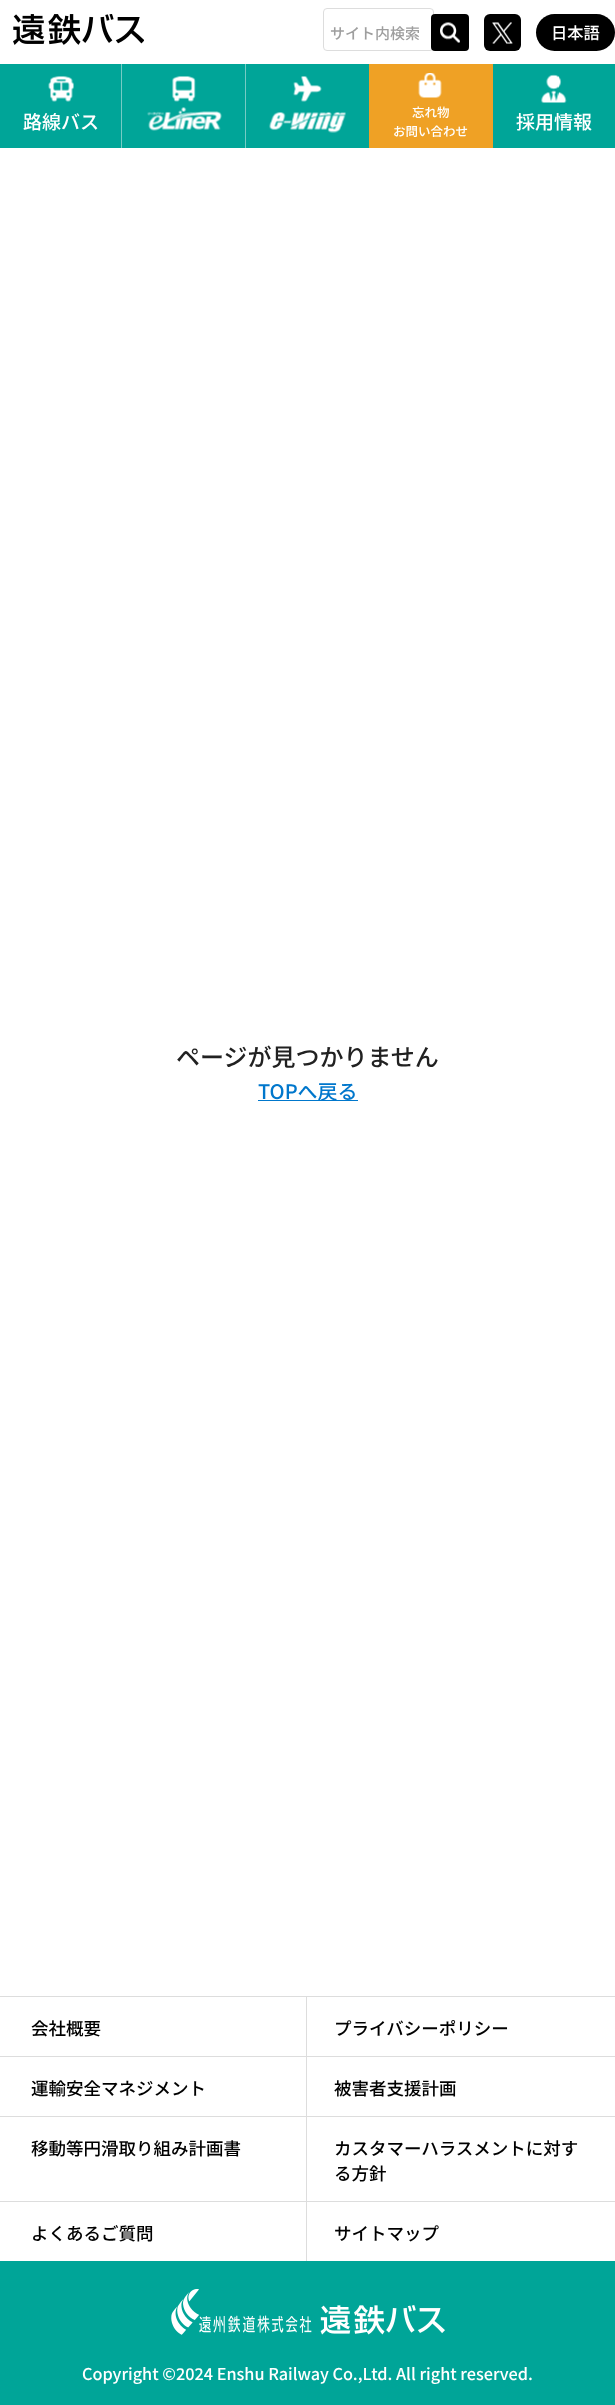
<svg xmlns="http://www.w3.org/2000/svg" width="615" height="2405">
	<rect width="100%" height="100%" fill="#FFFFFF" />
	<image x="13" y="14" width="131" height="31" href="assets/img1.png" />
	<rect x="323.5" y="8.5" width="110" height="42" rx="3.5" fill="none" stroke="#DDDDDD" />
	<text x="330" y="39" font-family="Noto Sans JP" font-size="15" font-weight="500" fill="#9E9E9E">サイト内検索</text>
	<rect x="431" y="14" width="38" height="37" rx="4" fill="#000000" />
	<image x="440" y="22" width="20" height="21" href="assets/img2.png" />
	<rect x="484" y="14" width="37" height="37" rx="6" fill="#000000" />
	<image x="492" y="22" width="21" height="22" href="assets/img3.png" />
	<rect x="536" y="14" width="79" height="37" rx="18.5" fill="#000000" />
	<text x="551" y="39" font-family="Noto Sans JP" font-size="16.25" font-weight="500" fill="#FFFFFF">日本語</text>
	<rect x="0" y="64" width="615" height="84" fill="#00A598" />
	<rect x="121" y="64" width="1" height="84" fill="#76CBC4" />
	<image x="48" y="76" width="26" height="26" href="assets/img4.png" />
	<text x="23" y="129" font-family="Noto Sans JP" font-size="19" font-weight="500" fill="#FFFFFF">路線バス</text>
	<rect x="245" y="64" width="1" height="84" fill="#76CBC4" />
	<image x="172" y="76" width="24" height="26" href="assets/img5.png" />
	<image x="147" y="107" width="75" height="24" href="assets/img6.png" />
	<image x="293" y="76" width="29" height="26" href="assets/img7.png" />
	<image x="269" y="112" width="77" height="21" href="assets/img8.png" />
	<rect x="369" y="64" width="124" height="84" fill="#EFA125" />
	<image x="418" y="73" width="24" height="25" href="assets/img9.png" />
	<g font-family="Noto Sans JP" font-size="12.5" font-weight="500" fill="#FFFFFF">
		<text x="412" y="117">忘れ物</text>
		<text x="393" y="136">お問い合わせ</text>
	</g>
	<image x="541" y="74" width="26" height="29" href="assets/img10.png" />
	<text x="516" y="129" font-family="Noto Sans JP" font-size="19" font-weight="500" fill="#FFFFFF">採用情報</text>
	<text x="176" y="1066" font-family="Noto Sans JP" font-size="24" font-weight="500" fill="#212121">ページが見つかりません</text>
	<rect x="258" y="1100" width="100" height="1" fill="#0077CC" />
	<text x="258" y="1099" font-family="Noto Sans JP" font-size="20" font-weight="500" fill="#0077CC">TOPへ戻る</text>
	<rect x="0" y="1996" width="615" height="1" fill="#DDDDDD" />
	<rect x="306" y="1996" width="1" height="60" fill="#DDDDDD" />
	<g font-family="Noto Sans JP" font-size="17.5" font-weight="500" fill="#000000">
		<text x="31" y="2035">会社概要</text>
		<text x="334" y="2035">プライバシーポリシー</text>
	</g>
	<rect x="0" y="2056" width="615" height="1" fill="#DDDDDD" />
	<rect x="306" y="2056" width="1" height="60" fill="#DDDDDD" />
	<g font-family="Noto Sans JP" font-size="17.5" font-weight="500" fill="#000000">
		<text x="31" y="2095">運輸安全マネジメント</text>
		<text x="334" y="2095">被害者支援計画</text>
	</g>
	<rect x="0" y="2116" width="615" height="1" fill="#DDDDDD" />
	<rect x="306" y="2116" width="1" height="85" fill="#DDDDDD" />
	<g font-family="Noto Sans JP" font-size="17.5" font-weight="500" fill="#000000">
		<text x="31" y="2155">移動等円滑取り組み計画書</text>
		<text x="334" y="2155">カスタマーハラスメントに対す</text>
		<text x="334" y="2180">る方針</text>
	</g>
	<rect x="0" y="2201" width="615" height="1" fill="#DDDDDD" />
	<rect x="306" y="2201" width="1" height="60" fill="#DDDDDD" />
	<g font-family="Noto Sans JP" font-size="17.5" font-weight="500" fill="#000000">
		<text x="31" y="2240">よくあるご質問</text>
		<text x="334" y="2240">サイトマップ</text>
	</g>
	<rect x="0" y="2261" width="615" height="144" fill="#00A598" />
	<image x="171" y="2289" width="274" height="46" href="assets/img11.png" />
	<text x="82" y="2380" font-family="Noto Sans JP" font-size="16.25" font-weight="500" fill="#FFFFFF">Copyright ©2024 Enshu Railway Co.,Ltd. All right reserved.</text>
</svg>
